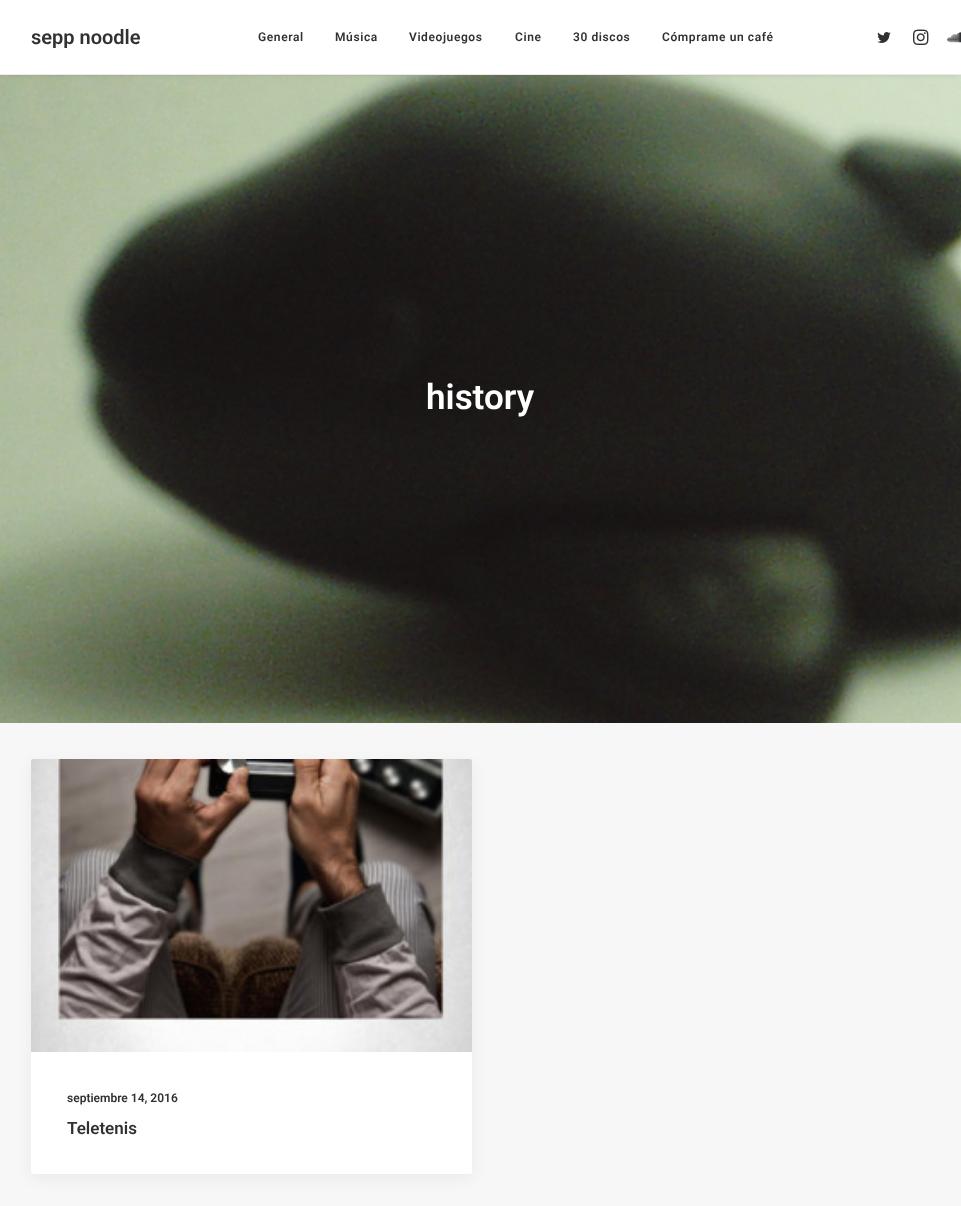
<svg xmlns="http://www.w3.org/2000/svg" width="961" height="1206">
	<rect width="100%" height="100%" fill="#FFFFFF" />
	<image x="0" y="75" width="961" height="648" href="assets/img4.png" />
	<rect x="5" y="14" width="952" height="55" fill="#000000" fill-opacity="0.6" filter="blur(5px)" />
	<rect x="0" y="3" width="961" height="71" fill="#FFFFFF" />
	<rect x="0" y="74" width="961" height="1" fill="#EAEAEA" />
	<text x="31" y="44" font-family="Roboto" font-size="20" font-weight="600" fill="#303133">sepp noodle</text>
	<g font-family="Roboto" font-size="12" font-weight="600" letter-spacing="0.6" fill="#303133">
		<text x="258" y="41">General</text>
		<text x="335" y="41">Música</text>
		<text x="409" y="41">Videojuegos</text>
		<text x="515" y="41">Cine</text>
		<text x="573" y="41">30 discos</text>
		<text x="662" y="41">Cómprame un café</text>
	</g>
	<image x="877" y="32" width="14" height="11" href="assets/img1.png" />
	<image x="913" y="29" width="16" height="16" href="assets/img2.png" />
	<image x="947" y="32" width="14" height="11" href="assets/img3.png" />
	<text x="426" y="409" font-family="Roboto" font-size="35" font-weight="600" fill="#FFFFFF">history</text>
	<rect x="0" y="723" width="961" height="483" fill="#F7F7F7" />
	<rect x="31" y="764" width="441" height="415" rx="2" fill="#000000" fill-opacity="0.05" filter="blur(7.5px)" />
	<rect x="31" y="759" width="441" height="415" rx="2" fill="#FFFFFF" />
	<image x="31" y="759" width="441" height="293" href="assets/img5.png" />
	<text x="67" y="1102" font-family="Roboto" font-size="12" font-weight="600" fill="#303133">septiembre 14, 2016</text>
	<text x="67" y="1134" font-family="Roboto" font-size="17" font-weight="600" fill="#303133">Teletenis</text>
</svg>
